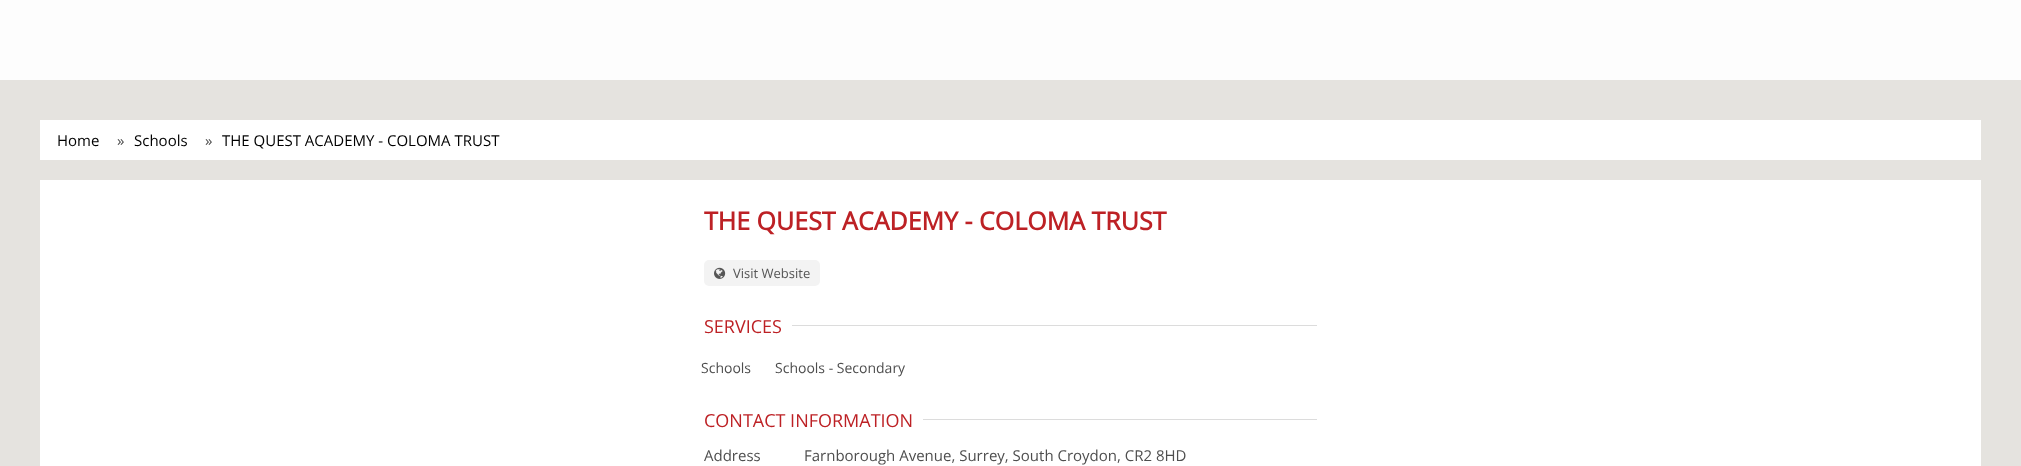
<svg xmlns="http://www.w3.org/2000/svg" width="2021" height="466">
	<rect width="100%" height="100%" fill="#E5E3DF" />
	<rect x="0" y="0" width="2021" height="80" fill="#FDFDFD" />
	<rect x="40" y="120" width="1941" height="40" fill="#FFFFFF" />
	<text x="57" y="146" font-family="Open Sans" font-size="15" fill="#000000">Home</text>
	<text x="117" y="146" font-family="Open Sans" font-size="15" fill="#4E4E4E">»</text>
	<text x="134" y="146" font-family="Open Sans" font-size="15" fill="#000000">Schools</text>
	<text x="205" y="146" font-family="Open Sans" font-size="15" fill="#4E4E4E">»</text>
	<text x="222" y="146" font-family="Open Sans" font-size="15" fill="#000000">THE QUEST ACADEMY - COLOMA TRUST</text>
	<rect x="40" y="180" width="1941" height="286" fill="#FFFFFF" />
	<text x="704" y="230" font-family="Open Sans" font-size="25" font-weight="700" fill="#BD2125">THE QUEST ACADEMY - COLOMA TRUST</text>
	<rect x="704" y="260" width="116" height="26" rx="5" fill="#F3F3F3" />
	<image x="714" y="267" width="12" height="12" href="assets/img1.png" />
	<text x="733" y="278" font-family="Open Sans" font-size="13" fill="#555555">Visit Website</text>
	<text x="704" y="333" font-family="Open Sans" font-size="18" fill="#BD2125">SERVICES</text>
	<rect x="792" y="325" width="525" height="1" fill="#DCDCDC" />
	<g font-family="Open Sans" font-size="14" fill="#4E4E4E">
		<text x="701" y="373">Schools</text>
		<text x="775" y="373">Schools - Secondary</text>
	</g>
	<text x="704" y="427" font-family="Open Sans" font-size="18" fill="#BD2125">CONTACT INFORMATION</text>
	<rect x="923" y="419" width="394" height="1" fill="#DCDCDC" />
	<g font-family="Open Sans" font-size="15" fill="#4E4E4E">
		<text x="704" y="461">Address</text>
		<text x="804" y="461">Farnborough Avenue, Surrey, South Croydon, CR2 8HD</text>
	</g>
</svg>
